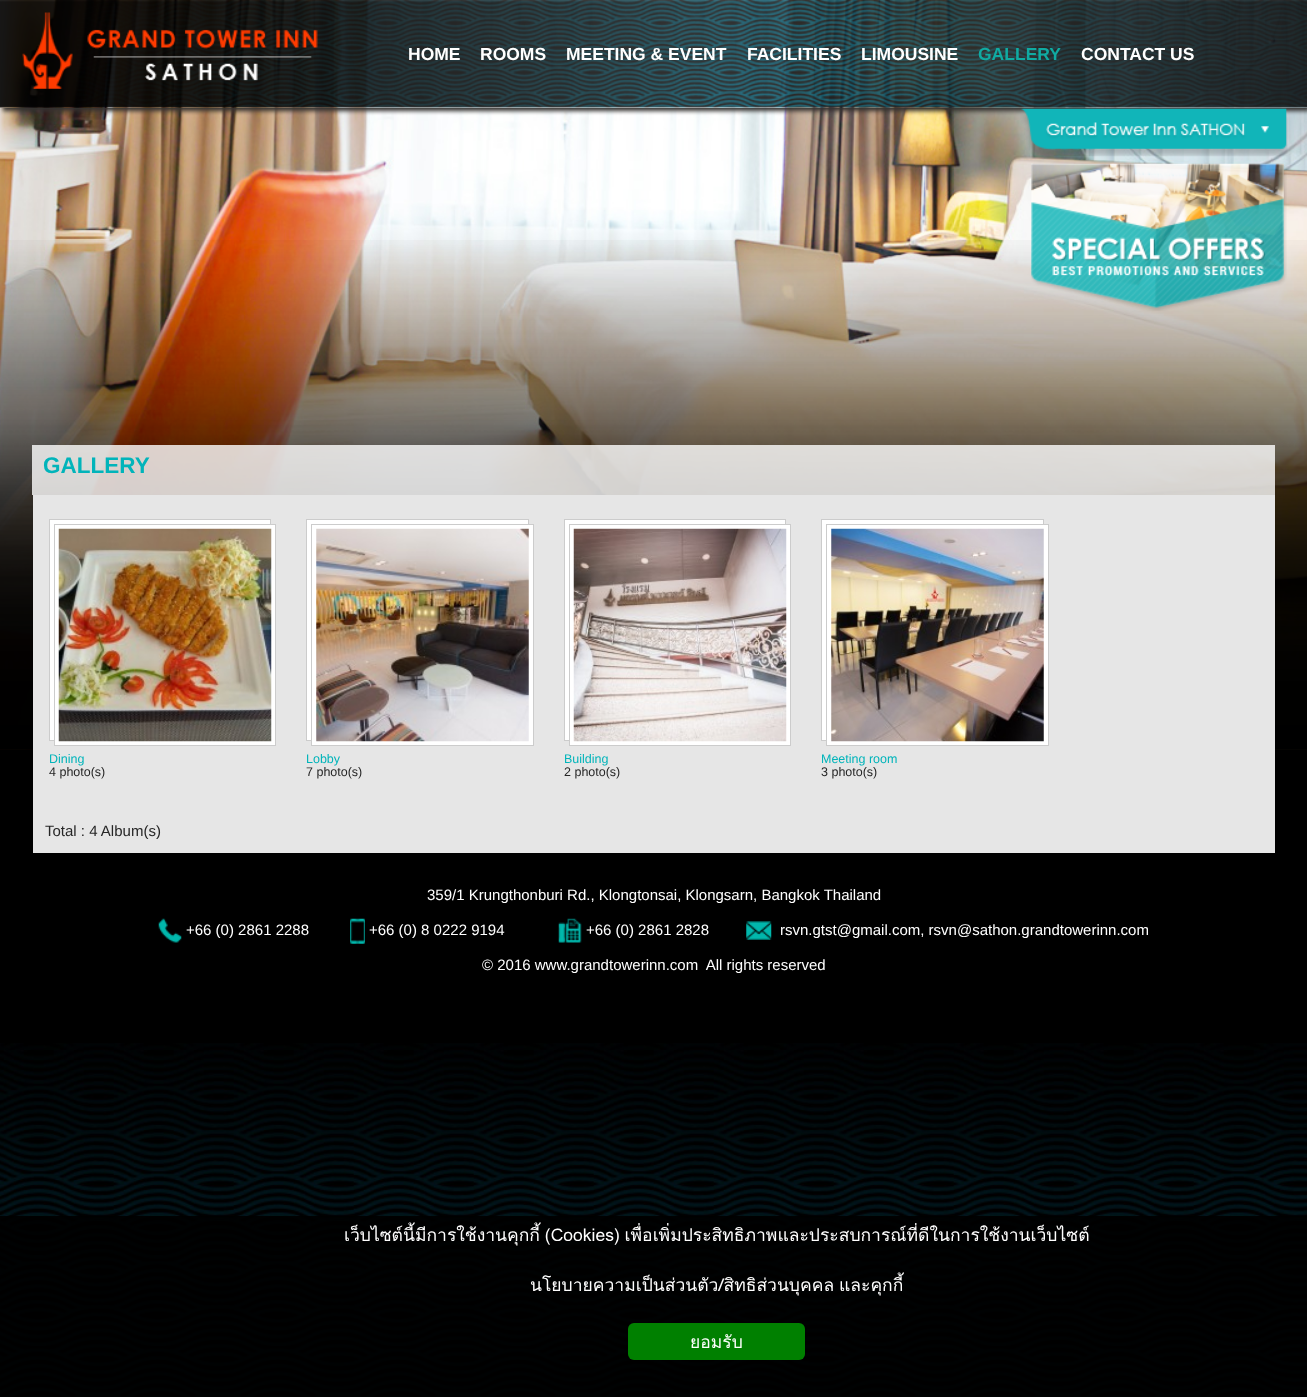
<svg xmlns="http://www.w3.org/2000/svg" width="1307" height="1397">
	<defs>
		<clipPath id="clip1"><path d="M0 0H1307V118H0ZM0 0H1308V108H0Z" clip-rule="evenodd" /></clipPath>
	</defs>
	<rect width="100%" height="100%" fill="#000000" />
	<image x="0" y="1043" width="1307" height="354" href="assets/img1.png" />
	<image x="0" y="0" width="1307" height="750" href="assets/img2.png" />
	<g clip-path="url(#clip1)">
		<rect x="3" y="4" width="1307" height="107" fill="#343230" filter="blur(2px)" />
	</g>
	<image x="0" y="0" width="1307" height="108" href="assets/img3.png" />
	<image x="22" y="12" width="296" height="77" href="assets/img4.png" />
	<g font-family="Liberation Sans" font-size="17.5" font-weight="700" fill="#FFFFFF">
		<text x="408" y="60">HOME</text>
		<text x="480" y="60">ROOMS</text>
		<text x="566" y="60">MEETING &amp; EVENT</text>
		<text x="747" y="60">FACILITIES</text>
		<text x="861" y="60">LIMOUSINE</text>
	</g>
	<text x="978" y="60" font-family="Liberation Sans" font-size="17.5" font-weight="700" fill="#10ABA2">GALLERY</text>
	<text x="1081" y="60" font-family="Liberation Sans" font-size="17.5" font-weight="700" fill="#FFFFFF">CONTACT US</text>
	<image x="1020" y="108" width="268" height="49" href="assets/img5.png" />
	<image x="0" y="240" width="1307" height="510" href="assets/img7.png" />
	<image x="1031" y="163" width="256" height="148" href="assets/img6.png" />
	<rect x="32" y="445" width="1243" height="50" fill="#FFFFFF" fill-opacity="0.8" />
	<text x="43" y="473" font-family="Liberation Sans" font-size="22.5" font-weight="700" fill="#01B4BA">GALLERY</text>
	<rect x="33" y="495" width="1242" height="358" fill="#E6E6E6" />
	<rect x="49.5" y="519.5" width="221" height="221" fill="#FFFFFF" stroke="#CCCCCC" />
	<rect x="54.5" y="524.5" width="221" height="221" fill="#FFFFFF" stroke="#CCCCCC" />
	<image x="58" y="528" width="214" height="214" href="assets/img8.png" />
	<text x="49" y="763" font-family="Liberation Sans" font-size="12.5" fill="#01B4BA">Dining</text>
	<text x="49" y="776" font-family="Liberation Sans" font-size="12.5" fill="#262626">4 photo(s)</text>
	<rect x="306.5" y="519.5" width="222" height="221" fill="#FFFFFF" stroke="#CCCCCC" />
	<rect x="311.5" y="524.5" width="222" height="221" fill="#FFFFFF" stroke="#CCCCCC" />
	<image x="316" y="528" width="213" height="214" href="assets/img9.png" />
	<text x="306" y="763" font-family="Liberation Sans" font-size="12.5" fill="#01B4BA">Lobby</text>
	<text x="306" y="776" font-family="Liberation Sans" font-size="12.5" fill="#262626">7 photo(s)</text>
	<rect x="564.5" y="519.5" width="221" height="221" fill="#FFFFFF" stroke="#CCCCCC" />
	<rect x="569.5" y="524.5" width="221" height="221" fill="#FFFFFF" stroke="#CCCCCC" />
	<image x="573" y="528" width="214" height="214" href="assets/img10.png" />
	<text x="564" y="763" font-family="Liberation Sans" font-size="12.5" fill="#01B4BA">Building</text>
	<text x="564" y="776" font-family="Liberation Sans" font-size="12.5" fill="#262626">2 photo(s)</text>
	<rect x="821.5" y="519.5" width="222" height="221" fill="#FFFFFF" stroke="#CCCCCC" />
	<rect x="826.5" y="524.5" width="222" height="221" fill="#FFFFFF" stroke="#CCCCCC" />
	<image x="831" y="528" width="213" height="214" href="assets/img11.png" />
	<text x="821" y="763" font-family="Liberation Sans" font-size="12.5" fill="#01B4BA">Meeting room</text>
	<text x="821" y="776" font-family="Liberation Sans" font-size="12.5" fill="#262626">3 photo(s)</text>
	<text x="45" y="836" font-family="Liberation Sans" font-size="15" fill="#262626">Total : 4 Album(s)</text>
	<text x="427" y="900" font-family="Liberation Sans" font-size="15" fill="#FFFFFF">359/1 Krungthonburi Rd., Klongtonsai, Klongsarn, Bangkok Thailand</text>
	<image x="158" y="918" width="24" height="25" href="assets/img12.png" />
	<text x="186" y="935" font-family="Liberation Sans" font-size="15" fill="#FFFFFF">+66 (0) 2861 2288</text>
	<image x="350" y="918" width="15" height="26" href="assets/img13.png" />
	<text x="369" y="935" font-family="Liberation Sans" font-size="15" fill="#FFFFFF">+66 (0) 8 0222 9194</text>
	<image x="558" y="918" width="24" height="25" href="assets/img14.png" />
	<text x="586" y="935" font-family="Liberation Sans" font-size="15" fill="#FFFFFF">+66 (0) 2861 2828</text>
	<image x="746" y="921" width="26" height="19" href="assets/img15.png" />
	<g font-family="Liberation Sans" font-size="15" fill="#FFFFFF">
		<text x="780" y="935">rsvn.gtst@gmail.com, rsvn@sathon.grandtowerinn.com</text>
		<text x="482" y="970" xml:space="preserve">© 2016 www.grandtowerinn.com  All rights reserved</text>
	</g>
	<rect x="0" y="1216" width="1307" height="181" fill="#000000" fill-opacity="0.9" />
	<g font-family="Loma" font-size="17.5" fill="#FFFFFF">
		<text x="344" y="1241" word-spacing="-1">เว็บไซต์นี้มีการใช้งานคุกกี้ (Cookies) เพื่อเพิ่มประสิทธิภาพและประสบการณ์ที่ดีในการใช้งานเว็บไซต์</text>
		<text x="530" y="1291" word-spacing="-1">นโยบายความเป็นส่วนตัว/สิทธิส่วนบุคคล และคุกกี้</text>
	</g>
	<rect x="628" y="1323" width="177" height="37" rx="6" fill="#008000" />
	<text x="690" y="1348" font-family="Loma" font-size="17.5" fill="#FFFFFF">ยอมรับ</text>
</svg>
